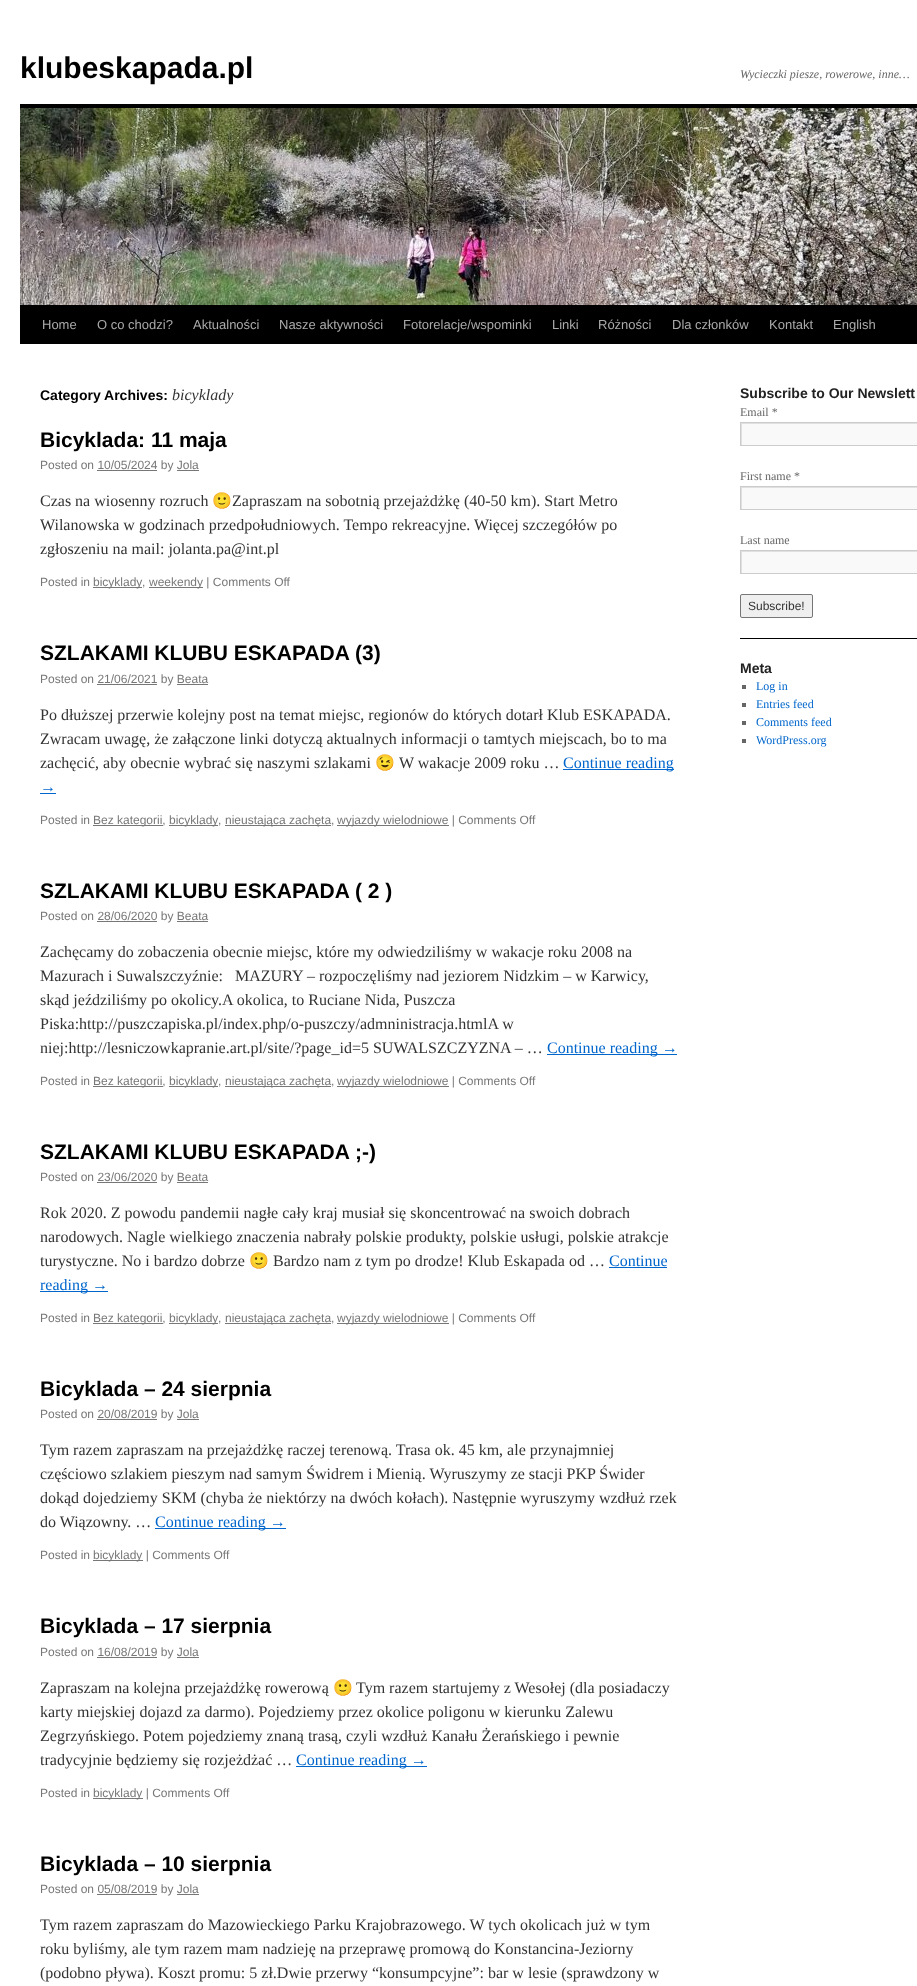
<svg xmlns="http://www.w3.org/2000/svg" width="917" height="1986">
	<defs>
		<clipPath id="clip1"><rect x="741" y="423" width="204" height="22" /></clipPath>
		<clipPath id="clip2"><rect x="741" y="487" width="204" height="22" /></clipPath>
		<clipPath id="clip3"><rect x="741" y="551" width="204" height="22" /></clipPath>
	</defs>
	<rect width="100%" height="100%" fill="#FFFFFF" />
	<text x="20" y="78" font-family="Liberation Sans" font-size="30" font-weight="700" fill="#000000">klubeskapada.pl</text>
	<text x="740" y="78" font-family="Liberation Serif" font-size="12" font-style="italic" fill="#666666">Wycieczki piesze, rowerowe, inne…</text>
	<rect x="20" y="104" width="897" height="4" fill="#000000" />
	<rect x="20" y="305" width="897" height="39" fill="#000000" />
	<image x="20" y="108" width="897" height="197" href="assets/img1.png" />
	<g font-family="Liberation Sans" font-size="13" fill="#AAAAAA">
		<text x="42" y="329">Home</text>
		<text x="97" y="329">O co chodzi?</text>
		<text x="193" y="329">Aktualności</text>
		<text x="279" y="329">Nasze aktywności</text>
		<text x="403" y="329">Fotorelacje/wspominki</text>
		<text x="552" y="329">Linki</text>
		<text x="598" y="329">Różności</text>
		<text x="672" y="329">Dla członków</text>
		<text x="769" y="329">Kontakt</text>
		<text x="833" y="329">English</text>
	</g>
	<text x="40" y="400" font-family="Liberation Sans" font-size="14" font-weight="700" fill="#000000">Category Archives:</text>
	<text x="172" y="400" font-family="Liberation Serif" font-size="16" font-style="italic" fill="#333333">bicyklady</text>
	<text x="40" y="447" font-family="Liberation Sans" font-size="21" font-weight="700" fill="#000000">Bicyklada: 11 maja</text>
	<text x="40" y="469" font-family="Liberation Sans" font-size="12" fill="#777777">Posted on 10/05/2024 by Jola</text>
	<rect x="97" y="470" width="60" height="1" fill="#777777" />
	<rect x="177" y="470" width="22" height="1" fill="#777777" />
	<text x="40" y="506" font-family="Liberation Serif" font-size="16" fill="#333333">Czas na wiosenny rozruch</text>
	<text x="212" y="506" font-family="Noto Color Emoji" font-size="16" fill="#333333">🙂</text>
	<g font-family="Liberation Serif" font-size="16" fill="#333333">
		<text x="232" y="506">Zapraszam na sobotnią przejażdżkę (40-50 km). Start Metro</text>
		<text x="40" y="530">Wilanowska w godzinach przedpołudniowych. Tempo rekreacyjne. Więcej szczegółów po</text>
		<text x="40" y="554">zgłoszeniu na mail: jolanta.pa@int.pl</text>
	</g>
	<text x="40" y="586" font-family="Liberation Sans" font-size="12" fill="#777777">Posted in</text>
	<rect x="93" y="587" width="49" height="1" fill="#777777" />
	<g font-family="Liberation Sans" font-size="12" fill="#777777">
		<text x="93" y="586">bicyklady</text>
		<text x="142" y="586">,</text>
	</g>
	<rect x="149" y="587" width="54" height="1" fill="#777777" />
	<text x="149" y="586" font-family="Liberation Sans" font-size="12" fill="#777777">weekendy | Comments Off</text>
	<text x="40" y="660" font-family="Liberation Sans" font-size="21" font-weight="700" fill="#000000">SZLAKAMI KLUBU ESKAPADA (3)</text>
	<text x="40" y="683" font-family="Liberation Sans" font-size="12" fill="#777777">Posted on 21/06/2021 by Beata</text>
	<rect x="97" y="684" width="60" height="1" fill="#777777" />
	<rect x="177" y="684" width="31" height="1" fill="#777777" />
	<g font-family="Liberation Serif" font-size="16" fill="#333333">
		<text x="40" y="720">Po dłuższej przerwie kolejny post na temat miejsc, regionów do których dotarł Klub ESKAPADA.</text>
		<text x="40" y="744">Zwracam uwagę, że załączone linki dotyczą aktualnych informacji o tamtych miejscach, bo to ma</text>
		<text x="40" y="768">zachęcić, aby obecnie wybrać się naszymi szlakami</text>
	</g>
	<text x="375" y="768" font-family="Noto Color Emoji" font-size="16" fill="#333333">😉</text>
	<text x="399" y="768" font-family="Liberation Serif" font-size="16" fill="#333333">W wakacje 2009 roku …</text>
	<rect x="563" y="769" width="111" height="1" fill="#0066CC" />
	<g font-family="Liberation Serif" font-size="16" fill="#0066CC">
		<text x="563" y="768">Continue reading</text>
		<text x="40" y="792">→</text>
	</g>
	<rect x="40" y="793" width="16" height="1" fill="#0066CC" />
	<text x="40" y="824" font-family="Liberation Sans" font-size="12" fill="#777777">Posted in</text>
	<rect x="93" y="825" width="70" height="1" fill="#777777" />
	<text x="93" y="824" font-family="Liberation Sans" font-size="12" fill="#777777">Bez kategorii,</text>
	<rect x="169" y="825" width="49" height="1" fill="#777777" />
	<g font-family="Liberation Sans" font-size="12" fill="#777777">
		<text x="169" y="824">bicyklady</text>
		<text x="218" y="824">,</text>
	</g>
	<rect x="225" y="825" width="106" height="1" fill="#777777" />
	<text x="225" y="824" font-family="Liberation Sans" font-size="12" fill="#777777">nieustająca zachęta,</text>
	<rect x="337" y="825" width="112" height="1" fill="#777777" />
	<text x="337" y="824" font-family="Liberation Sans" font-size="12" fill="#777777">wyjazdy wielodniowe | Comments Off</text>
	<text x="40" y="898" font-family="Liberation Sans" font-size="21" font-weight="700" fill="#000000">SZLAKAMI KLUBU ESKAPADA ( 2 )</text>
	<text x="40" y="920" font-family="Liberation Sans" font-size="12" fill="#777777">Posted on 28/06/2020 by Beata</text>
	<rect x="97" y="921" width="60" height="1" fill="#777777" />
	<rect x="177" y="921" width="31" height="1" fill="#777777" />
	<g font-family="Liberation Serif" font-size="16" fill="#333333">
		<text x="40" y="957">Zachęcamy do zobaczenia obecnie miejsc, które my odwiedziliśmy w wakacje roku 2008 na</text>
		<text x="40" y="981" xml:space="preserve">Mazurach i Suwalszczyźnie:   MAZURY – rozpoczęliśmy nad jeziorem Nidzkim – w Karwicy,</text>
		<text x="40" y="1005">skąd jeździliśmy po okolicy.A okolica, to Ruciane Nida, Puszcza</text>
		<text x="40" y="1029">Piska:http://puszczapiska.pl/index.php/o-puszczy/admninistracja.htmlA w</text>
		<text x="40" y="1053">niej:http://lesniczowkapranie.art.pl/site/?page_id=5 SUWALSZCZYZNA – …</text>
	</g>
	<rect x="547" y="1054" width="130" height="1" fill="#0066CC" />
	<text x="547" y="1053" font-family="Liberation Serif" font-size="16" fill="#0066CC">Continue reading →</text>
	<text x="40" y="1085" font-family="Liberation Sans" font-size="12" fill="#777777">Posted in</text>
	<rect x="93" y="1086" width="70" height="1" fill="#777777" />
	<text x="93" y="1085" font-family="Liberation Sans" font-size="12" fill="#777777">Bez kategorii,</text>
	<rect x="169" y="1086" width="49" height="1" fill="#777777" />
	<g font-family="Liberation Sans" font-size="12" fill="#777777">
		<text x="169" y="1085">bicyklady</text>
		<text x="218" y="1085">,</text>
	</g>
	<rect x="225" y="1086" width="106" height="1" fill="#777777" />
	<text x="225" y="1085" font-family="Liberation Sans" font-size="12" fill="#777777">nieustająca zachęta,</text>
	<rect x="337" y="1086" width="112" height="1" fill="#777777" />
	<text x="337" y="1085" font-family="Liberation Sans" font-size="12" fill="#777777">wyjazdy wielodniowe | Comments Off</text>
	<text x="40" y="1159" font-family="Liberation Sans" font-size="21" font-weight="700" fill="#000000">SZLAKAMI KLUBU ESKAPADA ;-)</text>
	<text x="40" y="1181" font-family="Liberation Sans" font-size="12" fill="#777777">Posted on 23/06/2020 by Beata</text>
	<rect x="97" y="1182" width="60" height="1" fill="#777777" />
	<rect x="177" y="1182" width="31" height="1" fill="#777777" />
	<g font-family="Liberation Serif" font-size="16" fill="#333333">
		<text x="40" y="1218">Rok 2020. Z powodu pandemii nagłe cały kraj musiał się skoncentrować na swoich dobrach</text>
		<text x="40" y="1242">narodowych. Nagle wielkiego znaczenia nabrały polskie produkty, polskie usługi, polskie atrakcje</text>
		<text x="40" y="1266">turystyczne. No i bardzo dobrze</text>
	</g>
	<text x="249" y="1266" font-family="Noto Color Emoji" font-size="16" fill="#333333">🙂</text>
	<text x="273" y="1266" font-family="Liberation Serif" font-size="16" fill="#333333">Bardzo nam z tym po drodze! Klub Eskapada od …</text>
	<text x="609" y="1266" font-family="Liberation Serif" font-size="16" fill="#0066CC">Continue</text>
	<rect x="609" y="1267" width="58" height="1" fill="#0066CC" />
	<rect x="40" y="1291" width="68" height="1" fill="#0066CC" />
	<text x="40" y="1290" font-family="Liberation Serif" font-size="16" fill="#0066CC">reading →</text>
	<text x="40" y="1322" font-family="Liberation Sans" font-size="12" fill="#777777">Posted in</text>
	<rect x="93" y="1323" width="70" height="1" fill="#777777" />
	<text x="93" y="1322" font-family="Liberation Sans" font-size="12" fill="#777777">Bez kategorii,</text>
	<rect x="169" y="1323" width="49" height="1" fill="#777777" />
	<g font-family="Liberation Sans" font-size="12" fill="#777777">
		<text x="169" y="1322">bicyklady</text>
		<text x="218" y="1322">,</text>
	</g>
	<rect x="225" y="1323" width="106" height="1" fill="#777777" />
	<text x="225" y="1322" font-family="Liberation Sans" font-size="12" fill="#777777">nieustająca zachęta,</text>
	<rect x="337" y="1323" width="112" height="1" fill="#777777" />
	<text x="337" y="1322" font-family="Liberation Sans" font-size="12" fill="#777777">wyjazdy wielodniowe | Comments Off</text>
	<text x="40" y="1396" font-family="Liberation Sans" font-size="21" font-weight="700" fill="#000000">Bicyklada – 24 sierpnia</text>
	<text x="40" y="1418" font-family="Liberation Sans" font-size="12" fill="#777777">Posted on 20/08/2019 by Jola</text>
	<rect x="97" y="1419" width="60" height="1" fill="#777777" />
	<rect x="177" y="1419" width="22" height="1" fill="#777777" />
	<g font-family="Liberation Serif" font-size="16" fill="#333333">
		<text x="40" y="1455">Tym razem zapraszam na przejażdżkę raczej terenową. Trasa ok. 45 km, ale przynajmniej</text>
		<text x="40" y="1479">częściowo szlakiem pieszym nad samym Świdrem i Mienią. Wyruszymy ze stacji PKP Świder</text>
		<text x="40" y="1503">dokąd dojedziemy SKM (chyba że niektórzy na dwóch kołach). Następnie wyruszymy wzdłuż rzek</text>
		<text x="40" y="1527">do Wiązowny. …</text>
	</g>
	<rect x="155" y="1528" width="131" height="1" fill="#0066CC" />
	<text x="155" y="1527" font-family="Liberation Serif" font-size="16" fill="#0066CC">Continue reading →</text>
	<text x="40" y="1559" font-family="Liberation Sans" font-size="12" fill="#777777">Posted in</text>
	<rect x="93" y="1560" width="50" height="1" fill="#777777" />
	<text x="93" y="1559" font-family="Liberation Sans" font-size="12" fill="#777777">bicyklady | Comments Off</text>
	<text x="40" y="1633" font-family="Liberation Sans" font-size="21" font-weight="700" fill="#000000">Bicyklada – 17 sierpnia</text>
	<text x="40" y="1656" font-family="Liberation Sans" font-size="12" fill="#777777">Posted on 16/08/2019 by Jola</text>
	<rect x="97" y="1657" width="60" height="1" fill="#777777" />
	<rect x="177" y="1657" width="22" height="1" fill="#777777" />
	<text x="40" y="1693" font-family="Liberation Serif" font-size="16" fill="#333333">Zapraszam na kolejna przejażdżkę rowerową</text>
	<text x="333" y="1693" font-family="Noto Color Emoji" font-size="16" fill="#333333">🙂</text>
	<g font-family="Liberation Serif" font-size="16" fill="#333333">
		<text x="356" y="1693">Tym razem startujemy z Wesołej (dla posiadaczy</text>
		<text x="40" y="1717">karty miejskiej dojazd za darmo). Pojedziemy przez okolice poligonu w kierunku Zalewu</text>
		<text x="40" y="1741">Zegrzyńskiego. Potem pojedziemy znaną trasą, czyli wzdłuż Kanału Żerańskiego i pewnie</text>
		<text x="40" y="1765">tradycyjnie będziemy się rozjeżdżać …</text>
	</g>
	<rect x="296" y="1766" width="131" height="1" fill="#0066CC" />
	<text x="296" y="1765" font-family="Liberation Serif" font-size="16" fill="#0066CC">Continue reading →</text>
	<text x="40" y="1797" font-family="Liberation Sans" font-size="12" fill="#777777">Posted in</text>
	<rect x="93" y="1798" width="50" height="1" fill="#777777" />
	<text x="93" y="1797" font-family="Liberation Sans" font-size="12" fill="#777777">bicyklady | Comments Off</text>
	<text x="40" y="1871" font-family="Liberation Sans" font-size="21" font-weight="700" fill="#000000">Bicyklada – 10 sierpnia</text>
	<text x="40" y="1893" font-family="Liberation Sans" font-size="12" fill="#777777">Posted on 05/08/2019 by Jola</text>
	<rect x="97" y="1894" width="60" height="1" fill="#777777" />
	<rect x="177" y="1894" width="22" height="1" fill="#777777" />
	<g font-family="Liberation Serif" font-size="16" fill="#333333">
		<text x="40" y="1930">Tym razem zapraszam do Mazowieckiego Parku Krajobrazowego. W tych okolicach już w tym</text>
		<text x="40" y="1954">roku byliśmy, ale tym razem mam nadzieję na przeprawę promową do Konstancina-Jeziorny</text>
		<text x="40" y="1978">(podobno pływa). Koszt promu: 5 zł.Dwie przerwy “konsumpcyjne”: bar w lesie (sprawdzony w</text>
	</g>
	<text x="740" y="398" font-family="Liberation Sans" font-size="14" font-weight="700" fill="#222222">Subscribe to Our Newslett</text>
	<text x="740" y="416" font-family="Liberation Serif" font-size="12" fill="#666666">Email *</text>
	<rect x="742" y="424" width="175" height="21" fill="#F9F9F9" />
	<g clip-path="url(#clip1)">
		<path d="M642 324H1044V544H642ZM742 424H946V446H742Z" fill="#E0E0E0" fill-rule="evenodd" />
	</g>
	<rect x="740.5" y="422.5" width="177" height="23" fill="none" stroke="#CCCCCC" />
	<text x="740" y="480" font-family="Liberation Serif" font-size="12" fill="#666666">First name *</text>
	<rect x="742" y="488" width="175" height="21" fill="#F9F9F9" />
	<g clip-path="url(#clip2)">
		<path d="M642 388H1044V608H642ZM742 488H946V510H742Z" fill="#E0E0E0" fill-rule="evenodd" />
	</g>
	<rect x="740.5" y="486.5" width="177" height="23" fill="none" stroke="#CCCCCC" />
	<text x="740" y="544" font-family="Liberation Serif" font-size="12" fill="#666666">Last name</text>
	<rect x="742" y="552" width="175" height="21" fill="#F9F9F9" />
	<g clip-path="url(#clip3)">
		<path d="M642 452H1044V672H642ZM742 552H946V574H742Z" fill="#E0E0E0" fill-rule="evenodd" />
	</g>
	<rect x="740.5" y="550.5" width="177" height="23" fill="none" stroke="#CCCCCC" />
	<rect x="740.5" y="594.5" width="72" height="23" rx="1.5" fill="#EFEFEF" stroke="#767676" />
	<text x="748" y="610" font-family="Liberation Sans" font-size="12" fill="#333333">Subscribe!</text>
	<rect x="740" y="638" width="177" height="1" fill="#000000" />
	<text x="740" y="673" font-family="Liberation Sans" font-size="14" font-weight="700" fill="#222222">Meta</text>
	<rect x="742" y="685" width="4" height="4" fill="#666666" />
	<text x="756" y="690" font-family="Liberation Serif" font-size="12" fill="#0066CC">Log in</text>
	<rect x="742" y="703" width="4" height="4" fill="#666666" />
	<text x="756" y="708" font-family="Liberation Serif" font-size="12" fill="#0066CC">Entries feed</text>
	<rect x="742" y="721" width="4" height="4" fill="#666666" />
	<text x="756" y="726" font-family="Liberation Serif" font-size="12" fill="#0066CC">Comments feed</text>
	<rect x="742" y="739" width="4" height="4" fill="#666666" />
	<text x="756" y="744" font-family="Liberation Serif" font-size="12" fill="#0066CC">WordPress.org</text>
</svg>
